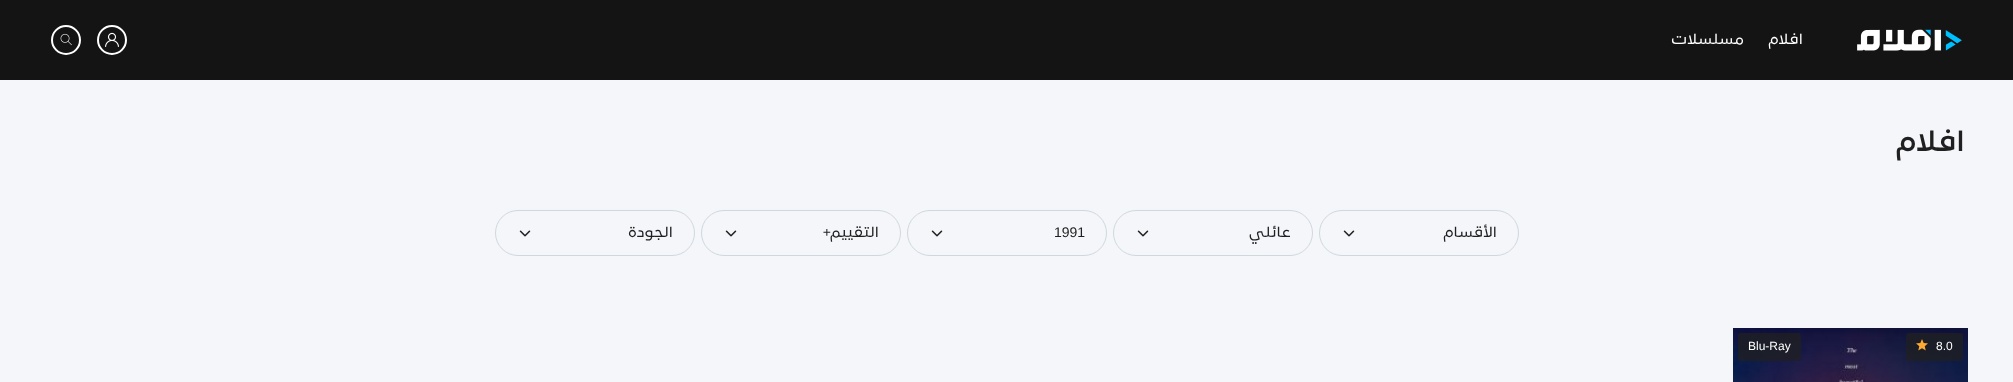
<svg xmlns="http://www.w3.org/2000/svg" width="2013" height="382">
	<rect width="100%" height="100%" fill="#F4F6FA" />
	<rect x="0" y="0" width="2013" height="80" fill="#141414" />
	<image x="1857" y="29" width="105" height="22" href="assets/img1.png" />
	<g font-family="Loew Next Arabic" font-size="14" font-weight="500" direction="rtl" fill="#FFFFFF">
		<text x="1803" y="44">افلام</text>
		<text x="1744" y="44">مسلسلات</text>
	</g>
	<circle cx="112" cy="40" r="14" fill="none" stroke="#FFFFFF" stroke-width="2" />
	<image x="105" y="32" width="14" height="15" href="assets/img2.png" />
	<circle cx="66" cy="40" r="14" fill="none" stroke="#FFFFFF" stroke-width="2" />
	<image x="60" y="33" width="12" height="13" href="assets/img3.png" />
	<text x="1965" y="151" font-family="Loew Next Arabic" font-size="28" font-weight="700" direction="rtl" fill="#202020">افلام</text>
	<rect x="1319.5" y="210.5" width="199" height="45" rx="22.5" fill="none" stroke="#D0D8DD" />
	<text x="1497" y="237" font-family="Loew Next Arabic" font-size="14" font-weight="500" direction="rtl" fill="#202020">الأقسام</text>
	<image x="1343" y="230" width="12" height="7" href="assets/img4.png" />
	<rect x="1113.5" y="210.5" width="199" height="45" rx="22.5" fill="none" stroke="#D0D8DD" />
	<text x="1291" y="237" font-family="Loew Next Arabic" font-size="14" font-weight="500" direction="rtl" fill="#202020">عائلي</text>
	<image x="1137" y="230" width="12" height="7" href="assets/img4.png" />
	<rect x="907.5" y="210.5" width="199" height="45" rx="22.5" fill="none" stroke="#D0D8DD" />
	<text x="1054" y="237" font-family="Liberation Sans" font-size="14" fill="#202020">1991</text>
	<image x="931" y="230" width="12" height="7" href="assets/img4.png" />
	<rect x="701.5" y="210.5" width="199" height="45" rx="22.5" fill="none" stroke="#D0D8DD" />
	<text x="879" y="237" font-family="Loew Next Arabic" font-size="14" font-weight="500" direction="rtl" fill="#202020">التقييم</text>
	<text x="831" y="237" font-family="Liberation Sans" font-size="14" direction="rtl" fill="#202020">+</text>
	<image x="725" y="230" width="12" height="7" href="assets/img4.png" />
	<rect x="495.5" y="210.5" width="199" height="45" rx="22.5" fill="none" stroke="#D0D8DD" />
	<text x="673" y="237" font-family="Loew Next Arabic" font-size="14" font-weight="500" direction="rtl" fill="#202020">الجودة</text>
	<image x="519" y="230" width="12" height="7" href="assets/img4.png" />
	<image x="1733" y="328" width="235" height="54" href="assets/img5.png" />
	<rect x="1906" y="333" width="57" height="28" rx="3" fill="#202020" fill-opacity="0.75" />
	<text x="1936" y="350" font-family="Liberation Sans" font-size="12" fill="#FFFFFF">8.0</text>
	<image x="1916" y="339" width="12" height="12" href="assets/img6.png" />
	<rect x="1738" y="333" width="63" height="28" rx="3" fill="#202020" fill-opacity="0.75" />
	<text x="1748" y="350" font-family="Liberation Sans" font-size="12" fill="#FFFFFF">Blu-Ray</text>
</svg>
